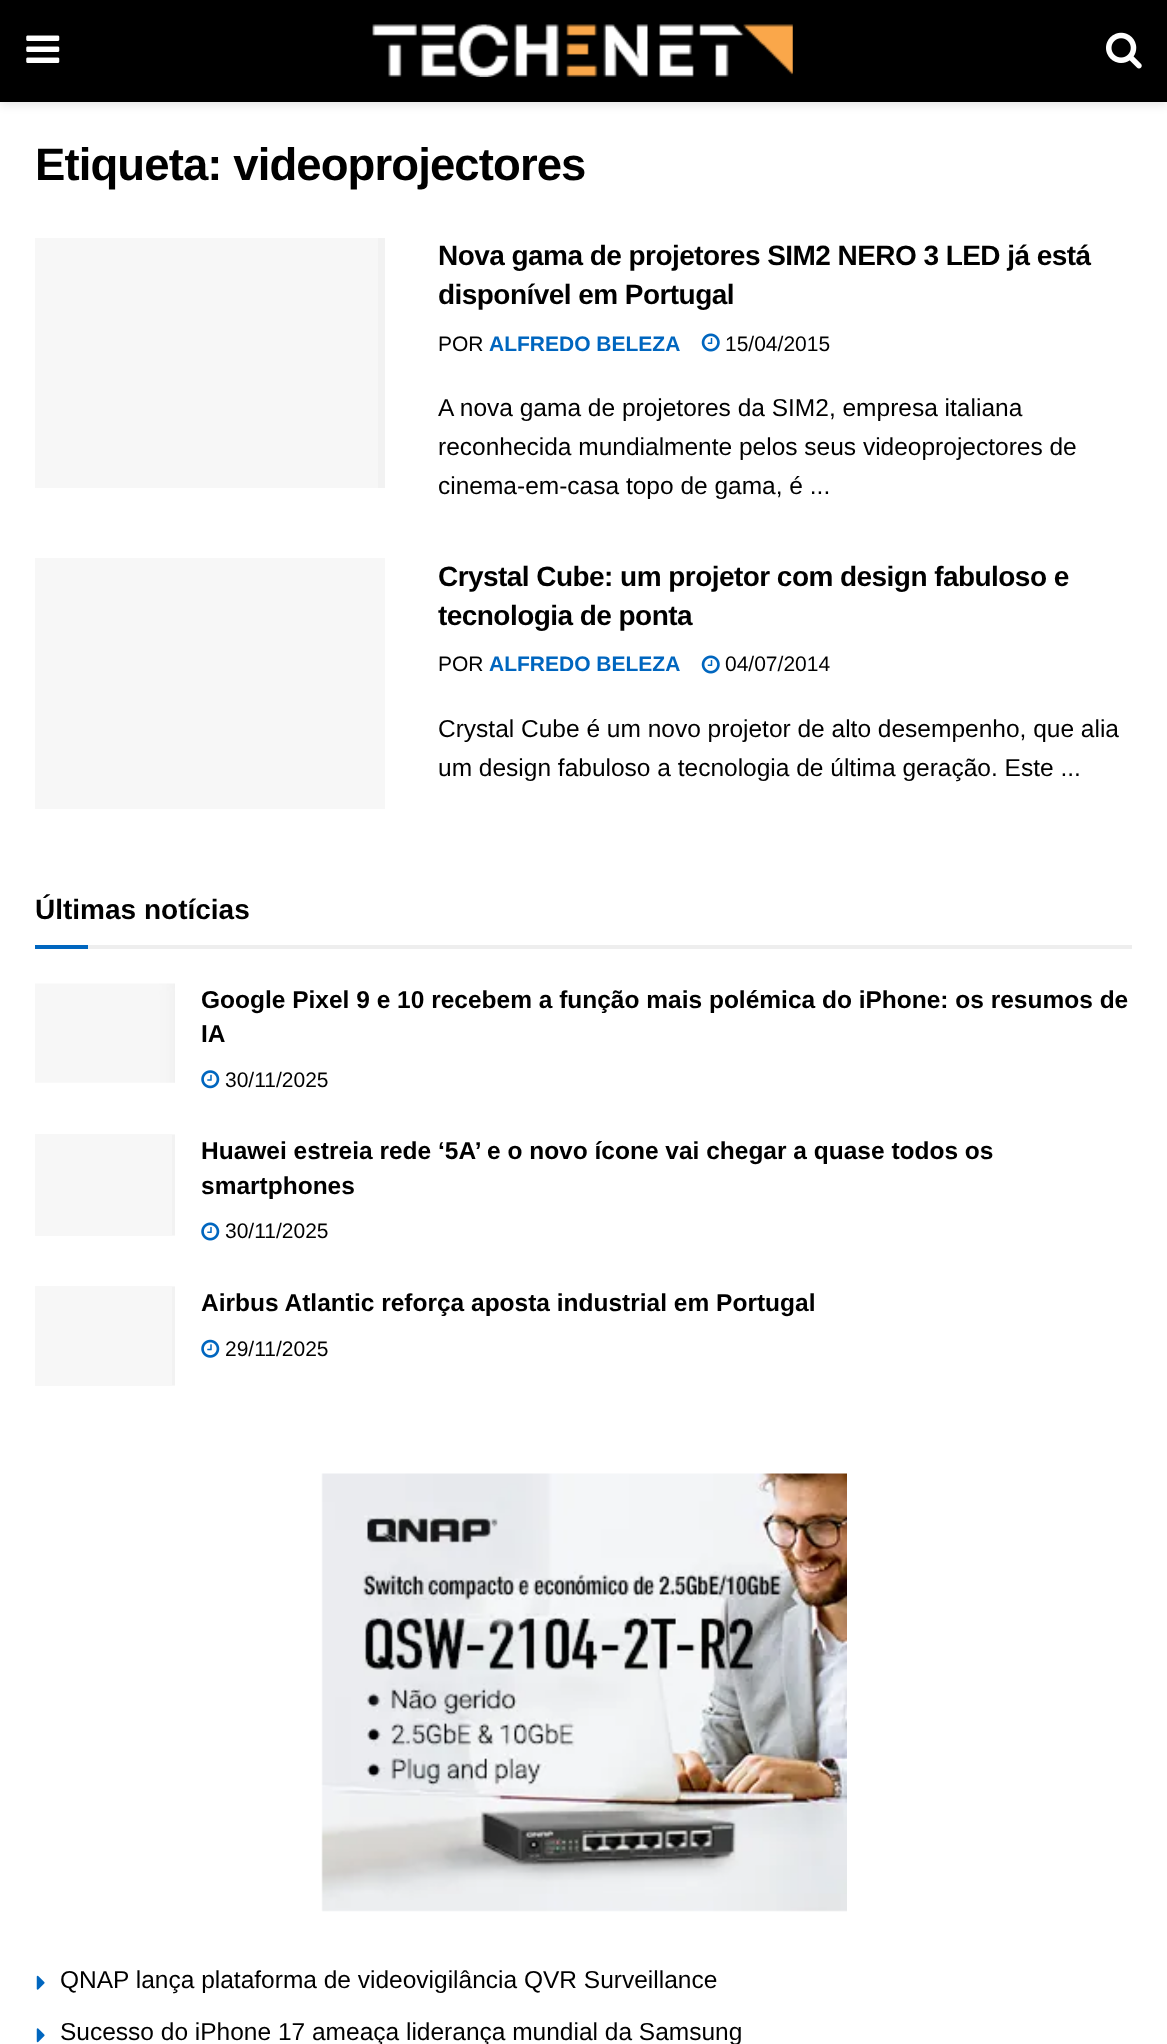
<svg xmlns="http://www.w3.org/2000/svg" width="1167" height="2044">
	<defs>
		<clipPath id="clip1"><rect x="438" y="558" width="694" height="230" /></clipPath>
	</defs>
	<rect width="100%" height="100%" fill="#FFFFFF" />
	<rect x="0" y="4" width="1167" height="101" fill="#000000" fill-opacity="0.1" filter="blur(5px)" />
	<rect x="0" y="0" width="1167" height="102" fill="#000000" />
	<image x="26" y="35" width="34" height="28" href="assets/img1.png" />
	<image x="372" y="24" width="421" height="53" href="assets/img2.png" />
	<image x="1106" y="32" width="36" height="37" href="assets/img3.png" />
	<text x="35" y="180" font-family="Liberation Sans" font-size="45.5" font-weight="700" letter-spacing="-0.9" fill="#000000">Etiqueta: videoprojectores</text>
	<rect x="35" y="238" width="343" height="250" fill="#F7F7F7" />
	<rect x="378" y="238" width="7" height="250" fill="#F2F2F2" />
	<g font-family="Liberation Sans" font-size="28" font-weight="700" letter-spacing="-0.55" fill="#000000">
		<text x="438" y="265">Nova gama de projetores SIM2 NERO 3 LED já está</text>
		<text x="438" y="304">disponível em Portugal</text>
	</g>
	<text x="438" y="351" font-family="Liberation Sans" font-size="21" fill="#000000">POR</text>
	<text x="489" y="351" font-family="Liberation Sans" font-size="21" font-weight="700" fill="#0066BF">ALFREDO BELEZA</text>
	<image x="701" y="333" width="19" height="19" href="assets/img4.png" />
	<text x="725" y="351" font-family="Liberation Sans" font-size="21" fill="#000000">15/04/2015</text>
	<g font-family="Liberation Sans" font-size="24.5" fill="#000000">
		<text x="438" y="416">A nova gama de projetores da SIM2, empresa italiana</text>
		<text x="438" y="455">reconhecida mundialmente pelos seus videoprojectores de</text>
		<text x="438" y="494">cinema-em-casa topo de gama, é ...</text>
	</g>
	<rect x="35" y="558" width="350" height="251" fill="#F7F7F7" />
	<text x="438" y="586" font-family="Liberation Sans" font-size="28" font-weight="700" letter-spacing="-0.55" fill="#000000">Crystal Cube: um projetor com design fabuloso e</text>
	<g clip-path="url(#clip1)">
		<text x="438" y="625" font-family="Liberation Sans" font-size="28" font-weight="700" letter-spacing="-0.55" fill="#000000">tecnologia de ponta</text>
	</g>
	<text x="438" y="671" font-family="Liberation Sans" font-size="21" fill="#000000">POR</text>
	<text x="489" y="671" font-family="Liberation Sans" font-size="21" font-weight="700" fill="#0066BF">ALFREDO BELEZA</text>
	<image x="701" y="655" width="19" height="19" href="assets/img4.png" />
	<text x="725" y="671" font-family="Liberation Sans" font-size="21" fill="#000000">04/07/2014</text>
	<g font-family="Liberation Sans" font-size="24.5" fill="#000000">
		<text x="438" y="737">Crystal Cube é um novo projetor de alto desempenho, que alia</text>
		<text x="438" y="776">um design fabuloso a tecnologia de última geração. Este ...</text>
	</g>
	<rect x="88" y="945" width="1044" height="4" fill="#EEEEEE" />
	<text x="35" y="919" font-family="Liberation Sans" font-size="28" font-weight="700" fill="#000000">Últimas notícias</text>
	<rect x="35" y="945" width="53" height="4" fill="#0066BF" />
	<image x="35" y="983" width="140" height="100" href="assets/img5.png" />
	<g font-family="Liberation Sans" font-size="24.5" font-weight="700" fill="#000000">
		<text x="201" y="1008">Google Pixel 9 e 10 recebem a função mais polémica do iPhone: os resumos de</text>
		<text x="201" y="1042">IA</text>
	</g>
	<image x="201" y="1070" width="19" height="19" href="assets/img6.png" />
	<text x="225" y="1087" font-family="Liberation Sans" font-size="21" fill="#000000">30/11/2025</text>
	<rect x="35" y="1134" width="140" height="102" fill="#F7F7F7" />
	<rect x="172" y="1135" width="3" height="100" fill="#F2F2F2" />
	<g font-family="Liberation Sans" font-size="24.5" font-weight="700" fill="#000000">
		<text x="201" y="1159">Huawei estreia rede ‘5A’ e o novo ícone vai chegar a quase todos os</text>
		<text x="201" y="1194">smartphones</text>
	</g>
	<image x="201" y="1222" width="19" height="19" href="assets/img7.png" />
	<text x="225" y="1238" font-family="Liberation Sans" font-size="21" fill="#000000">30/11/2025</text>
	<rect x="35" y="1286" width="140" height="100" fill="#F7F7F7" />
	<rect x="172" y="1287" width="3" height="98" fill="#F2F2F2" />
	<text x="201" y="1311" font-family="Liberation Sans" font-size="24.5" font-weight="700" fill="#000000">Airbus Atlantic reforça aposta industrial em Portugal</text>
	<image x="201" y="1339" width="19" height="19" href="assets/img8.png" />
	<text x="225" y="1356" font-family="Liberation Sans" font-size="21" fill="#000000">29/11/2025</text>
	<image x="321" y="1473" width="526" height="439" href="assets/img9.png" />
	<image x="36" y="1975" width="9" height="15" href="assets/img10.png" />
	<text x="60" y="1988" font-family="Liberation Sans" font-size="24.5" fill="#000000">QNAP lança plataforma de videovigilância QVR Surveillance</text>
	<image x="36" y="2028" width="9" height="15" href="assets/img11.png" />
	<text x="60" y="2040" font-family="Liberation Sans" font-size="24.5" fill="#000000">Sucesso do iPhone 17 ameaça liderança mundial da Samsung</text>
</svg>
